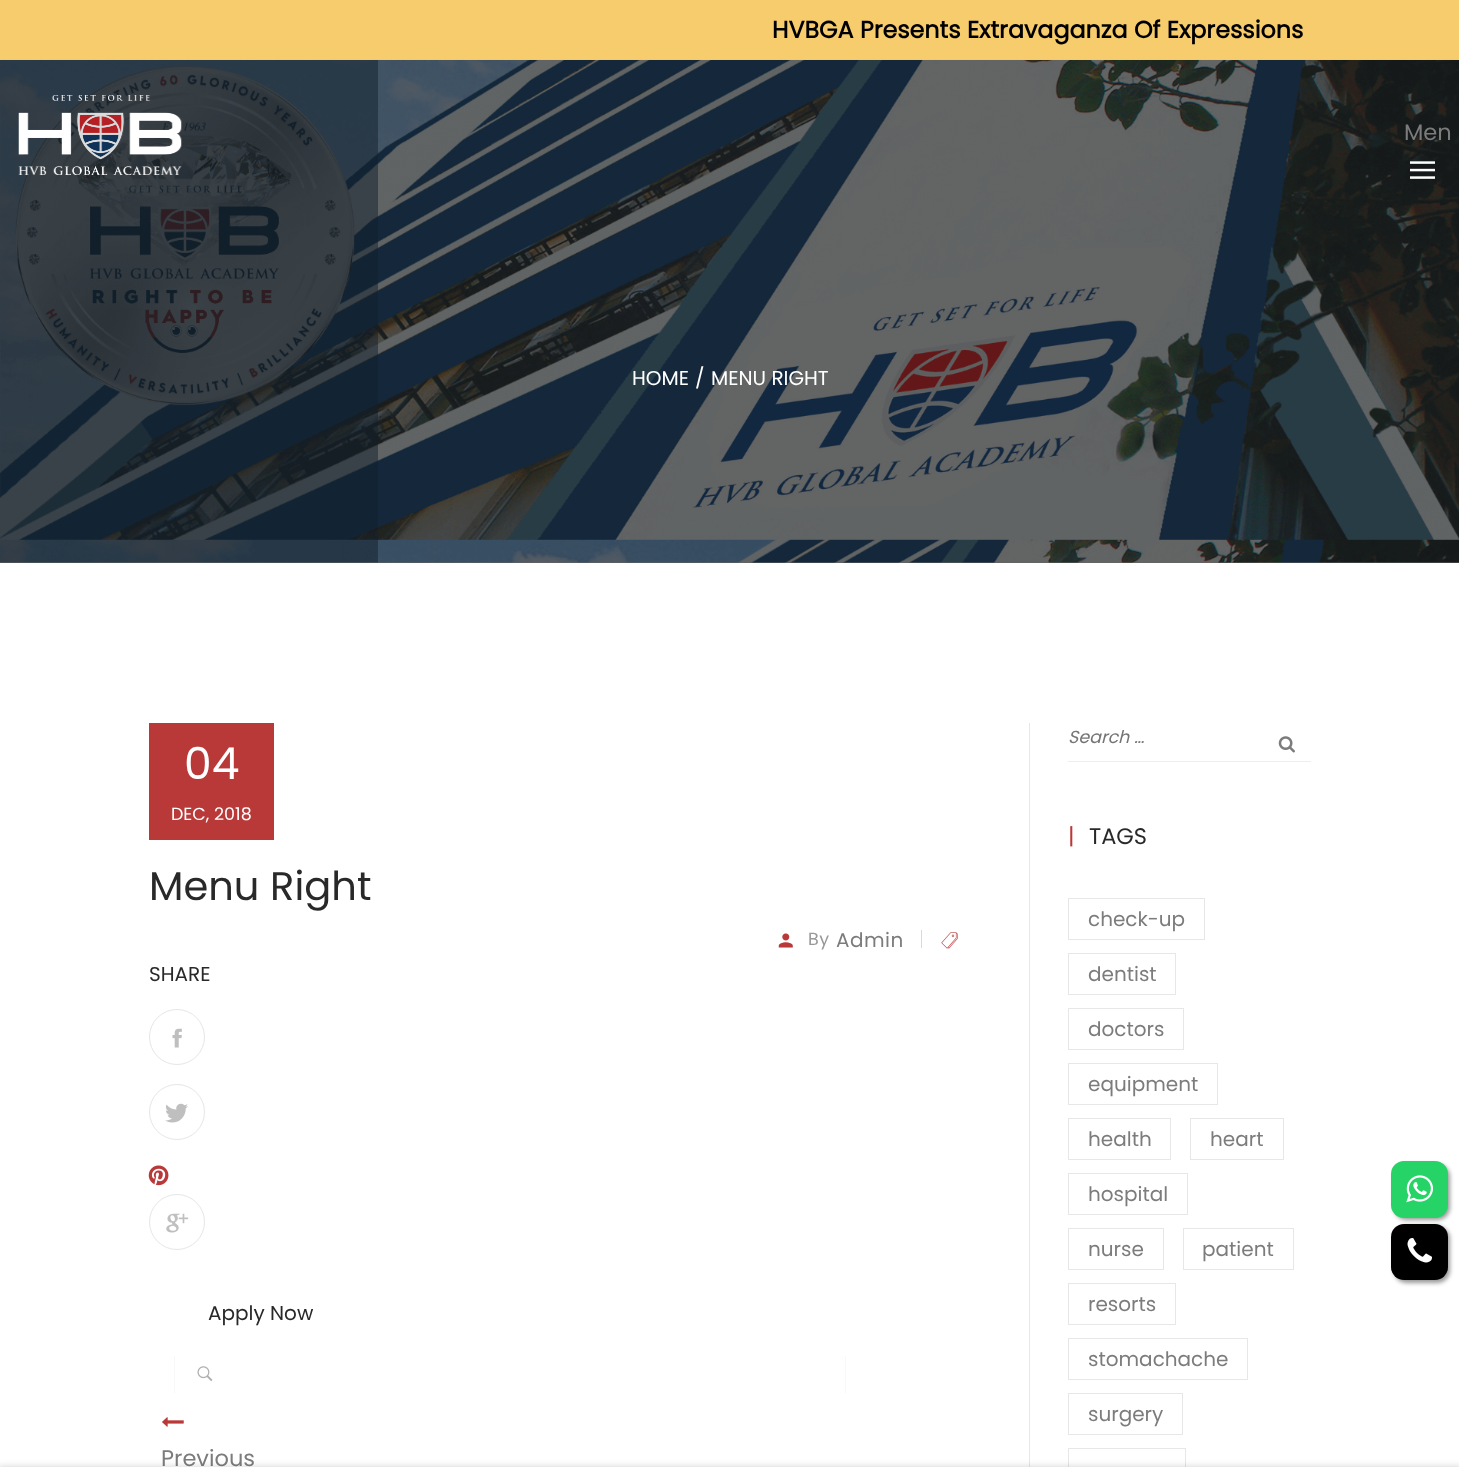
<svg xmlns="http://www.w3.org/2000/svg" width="1459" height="1467">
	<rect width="100%" height="100%" fill="#FFFFFF" />
	<rect x="0" y="562" width="1459" height="1" fill="#646464" />
	<rect x="0" y="0" width="1459" height="59" fill="#F6CC6C" />
	<rect x="0" y="59" width="1459" height="1" fill="#F0CA74" />
	<text x="772" y="38" font-family="Poppins" font-size="23.75" font-weight="700" fill="#000000">HVBGA Presents Extravaganza Of Expressions</text>
	<image x="0" y="60" width="1459" height="503" href="assets/img3.png" />
	<image x="18" y="95" width="164" height="80" href="assets/img1.png" />
	<text x="1404" y="140" font-family="Poppins" font-size="22.5" fill="#7C7C7C">Men</text>
	<image x="1410" y="161" width="25" height="18" href="assets/img2.png" />
	<g font-family="Poppins" font-size="20" fill="#FFFFFF">
		<text x="632" y="385">HOME</text>
		<text x="695" y="385">/</text>
		<text x="711" y="385">MENU RIGHT</text>
	</g>
	<rect x="1029" y="723" width="1" height="744" fill="#E7E7E7" />
	<rect x="149" y="723" width="125" height="117" fill="#B93938" />
	<text x="184" y="779" font-family="Poppins" font-size="44" fill="#FFFFFF">04</text>
	<text x="171" y="820" font-family="Poppins" font-size="17.5" fill="#FFFFFF">DEC, 2018</text>
	<text x="149" y="900" font-family="Poppins" font-size="40" fill="#292929">Menu Right</text>
	<image x="778" y="933" width="15" height="15" href="assets/img4.png" />
	<text x="808" y="945" font-family="Poppins" font-size="17.5" letter-spacing="0.5" fill="#999999">By</text>
	<text x="836" y="947" font-family="Poppins" font-size="20" letter-spacing="0.5" fill="#7C7C7C">Admin</text>
	<rect x="921" y="930" width="1" height="18" fill="#D9D9D9" />
	<image x="941" y="932" width="17" height="17" href="assets/img5.png" />
	<text x="149" y="981" font-family="Poppins" font-size="20" fill="#292929">SHARE</text>
	<circle cx="177" cy="1037" r="27.5" fill="none" stroke="#E6E6E6" />
	<image x="172" y="1028" width="10" height="20" href="assets/img6.png" />
	<circle cx="177" cy="1112" r="27.5" fill="none" stroke="#E6E6E6" />
	<image x="165" y="1103" width="23" height="20" href="assets/img7.png" />
	<image x="148" y="1165" width="21" height="21" href="assets/img8.png" />
	<circle cx="177" cy="1222" r="27.5" fill="none" stroke="#E6E6E6" />
	<image x="166" y="1213" width="23" height="20" href="assets/img9.png" />
	<text x="208" y="1320" font-family="Poppins" font-size="20" fill="#292929">Apply Now</text>
	<rect x="845" y="1356" width="1" height="37" fill="#F8F8F8" />
	<rect x="174" y="1356" width="1" height="37" fill="#F8F8F8" />
	<image x="197" y="1366" width="16" height="16" href="assets/img10.png" />
	<image x="162" y="1417" width="22" height="10" href="assets/img11.png" />
	<text x="161" y="1466" font-family="Poppins" font-size="22.5" fill="#7C7C7C">Previous</text>
	<rect x="1068" y="761" width="243" height="1" fill="#EEEEEE" />
	<text x="1068" y="743" font-family="Poppins" font-size="17.5" font-style="italic" fill="#757575">Search …</text>
	<image x="1278" y="736" width="17" height="17" href="assets/img12.png" />
	<text x="1068" y="844" font-family="Poppins" font-size="22.5" fill="#B93938">|</text>
	<text x="1089" y="844" font-family="Poppins" font-size="22.5" fill="#292929">TAGS</text>
	<rect x="1068.5" y="898.5" width="136" height="41" fill="none" stroke="#E7E7E7" />
	<text x="1088" y="926" font-family="Poppins" font-size="20" fill="#7C7C7C">check-up</text>
	<rect x="1068.5" y="953.5" width="107" height="41" fill="none" stroke="#E7E7E7" />
	<text x="1088" y="981" font-family="Poppins" font-size="20" fill="#7C7C7C">dentist</text>
	<rect x="1068.5" y="1008.5" width="115" height="41" fill="none" stroke="#E7E7E7" />
	<text x="1088" y="1036" font-family="Poppins" font-size="20" fill="#7C7C7C">doctors</text>
	<rect x="1068.5" y="1063.5" width="149" height="41" fill="none" stroke="#E7E7E7" />
	<text x="1088" y="1091" font-family="Poppins" font-size="20" fill="#7C7C7C">equipment</text>
	<rect x="1068.5" y="1118.5" width="102" height="41" fill="none" stroke="#E7E7E7" />
	<text x="1088" y="1146" font-family="Poppins" font-size="20" fill="#7C7C7C">health</text>
	<rect x="1190.5" y="1118.5" width="93" height="41" fill="none" stroke="#E7E7E7" />
	<text x="1210" y="1146" font-family="Poppins" font-size="20" fill="#7C7C7C">heart</text>
	<rect x="1068.5" y="1173.5" width="119" height="41" fill="none" stroke="#E7E7E7" />
	<text x="1088" y="1201" font-family="Poppins" font-size="20" fill="#7C7C7C">hospital</text>
	<rect x="1068.5" y="1228.5" width="95" height="41" fill="none" stroke="#E7E7E7" />
	<text x="1088" y="1256" font-family="Poppins" font-size="20" fill="#7C7C7C">nurse</text>
	<rect x="1183.5" y="1228.5" width="110" height="41" fill="none" stroke="#E7E7E7" />
	<text x="1202" y="1256" font-family="Poppins" font-size="20" fill="#7C7C7C">patient</text>
	<rect x="1068.5" y="1283.5" width="107" height="41" fill="none" stroke="#E7E7E7" />
	<text x="1088" y="1311" font-family="Poppins" font-size="20" fill="#7C7C7C">resorts</text>
	<rect x="1068.5" y="1338.5" width="179" height="41" fill="none" stroke="#E7E7E7" />
	<text x="1088" y="1366" font-family="Poppins" font-size="20" fill="#7C7C7C">stomachache</text>
	<rect x="1068.5" y="1393.5" width="114" height="41" fill="none" stroke="#E7E7E7" />
	<text x="1088" y="1421" font-family="Poppins" font-size="20" fill="#7C7C7C">surgery</text>
	<rect x="1068.5" y="1448.5" width="117" height="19" fill="none" stroke="#E7E7E7" />
	<rect x="1394" y="1164" width="56" height="56" rx="13" fill="#999999" filter="blur(2px)" />
	<rect x="1391" y="1161" width="57" height="57" rx="13" fill="#25D366" />
	<image x="1406" y="1175" width="27" height="28" href="assets/img13.png" />
	<rect x="1394" y="1226" width="56" height="57" rx="13" fill="#999999" filter="blur(2px)" />
	<rect x="1391" y="1224" width="57" height="56" rx="13" fill="#000000" />
	<image x="1407" y="1238" width="25" height="25" href="assets/img14.png" />
	<rect x="-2" y="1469" width="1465" height="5" fill="#2A2A2A" fill-opacity="0.4" filter="blur(4px)" />
</svg>
